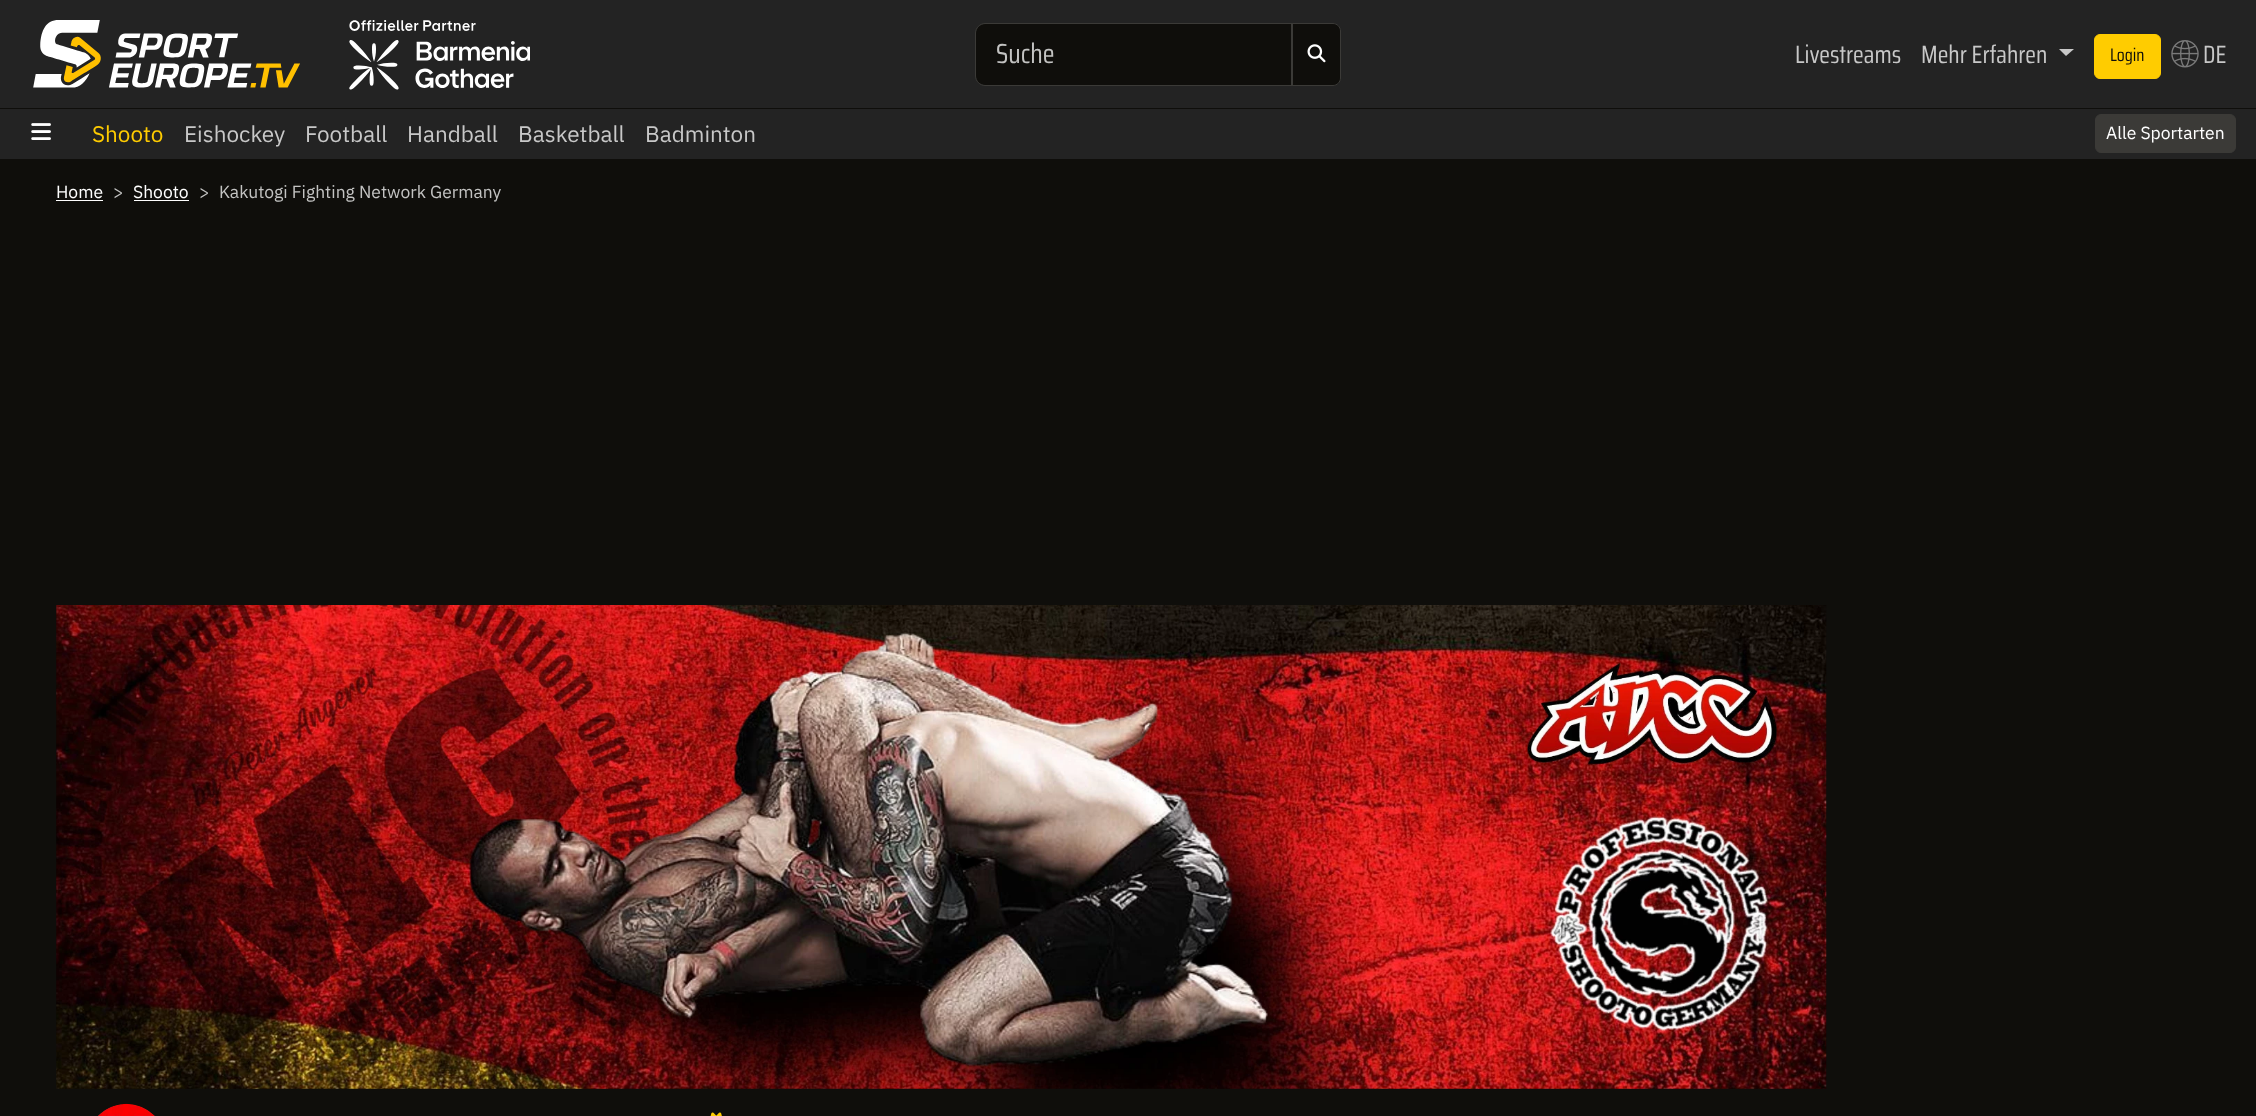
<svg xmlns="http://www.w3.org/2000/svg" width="2256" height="1116">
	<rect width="100%" height="100%" fill="#0F0E0B" />
	<rect x="0" y="0" width="2256" height="108" fill="#232323" />
	<image x="33" y="20" width="497" height="70" href="assets/img1.png" />
	<path d="M985 24H1291V85H985C980 85 976 81 976 76V33C976 28 980 24 985 24Z" fill="#0F0E0B" />
	<path d="M1291.5 23.5H1333C1337 23.5 1340.5 27 1340.5 31V78C1340.5 82 1337 85.5 1333 85.5H1291.5Z" fill="#0F0E0B" stroke="#3B3A37" />
	<path d="M985 23.5H1292.5V85.5H985C980 85.5 975.5 81 975.5 76V33C975.5 28 980 23.5 985 23.5Z" fill="none" stroke="#3B3A37" />
	<text x="996" y="63" font-family="Saira Condensed" font-size="27.5" fill="#C3C3C2">Suche</text>
	<image x="1307" y="44" width="19" height="19" href="assets/img2.png" />
	<g font-family="Saira Condensed" font-size="25" fill="#C8C8C8">
		<text x="1795" y="63">Livestreams</text>
		<text x="1921" y="63">Mehr Erfahren</text>
	</g>
	<path d="M2059 49H2074L2066 56Z" fill="#C8C8C8" />
	<rect x="2094.5" y="34.5" width="66" height="44" rx="5.5" fill="#FFCC00" stroke="#FFCC00" />
	<text x="2110" y="61" font-family="Saira Condensed" font-size="18" fill="#0F0E0B">Login</text>
	<image x="2171" y="40" width="28" height="28" href="assets/img3.png" />
	<text x="2203" y="63" font-family="Saira Condensed" font-size="25" fill="#C8C8C8">DE</text>
	<rect x="0" y="109" width="2256" height="50" fill="#232323" />
	<image x="31" y="123" width="20" height="17" href="assets/img4.png" />
	<text x="92" y="142" font-family="IBM Plex Sans" font-size="22.5" fill="#FFCC00">Shooto</text>
	<g font-family="IBM Plex Sans" font-size="22.5" fill="#C8C8C8">
		<text x="184" y="142">Eishockey</text>
		<text x="305" y="142">Football</text>
		<text x="407" y="142">Handball</text>
		<text x="518" y="142">Basketball</text>
		<text x="645" y="142">Badminton</text>
	</g>
	<rect x="2095.5" y="114.5" width="140" height="38" rx="5.5" fill="#3B3A37" stroke="#3B3A37" />
	<g font-family="IBM Plex Sans" font-size="17.5" fill="#FFFFFF">
		<text x="2106" y="139">Alle Sportarten</text>
		<text x="56" y="198">Home</text>
	</g>
	<rect x="56" y="200" width="47" height="1" fill="#FFFFFF" />
	<text x="113" y="198" font-family="IBM Plex Sans" font-size="17.5" fill="#C3C3C2">&gt;</text>
	<text x="133" y="198" font-family="IBM Plex Sans" font-size="17.5" fill="#FFFFFF">Shooto</text>
	<rect x="134" y="200" width="55" height="1" fill="#FFFFFF" />
	<g font-family="IBM Plex Sans" font-size="17.5" fill="#C3C3C2">
		<text x="199" y="198">&gt;</text>
		<text x="219" y="198">Kakutogi Fighting Network Germany</text>
	</g>
	<image x="56" y="605" width="1771" height="484" href="assets/img5.png" />
	<image x="98" y="1103" width="57" height="13" href="assets/img6.png" />
	<image x="710" y="1112" width="12" height="4" href="assets/img7.png" />
</svg>
